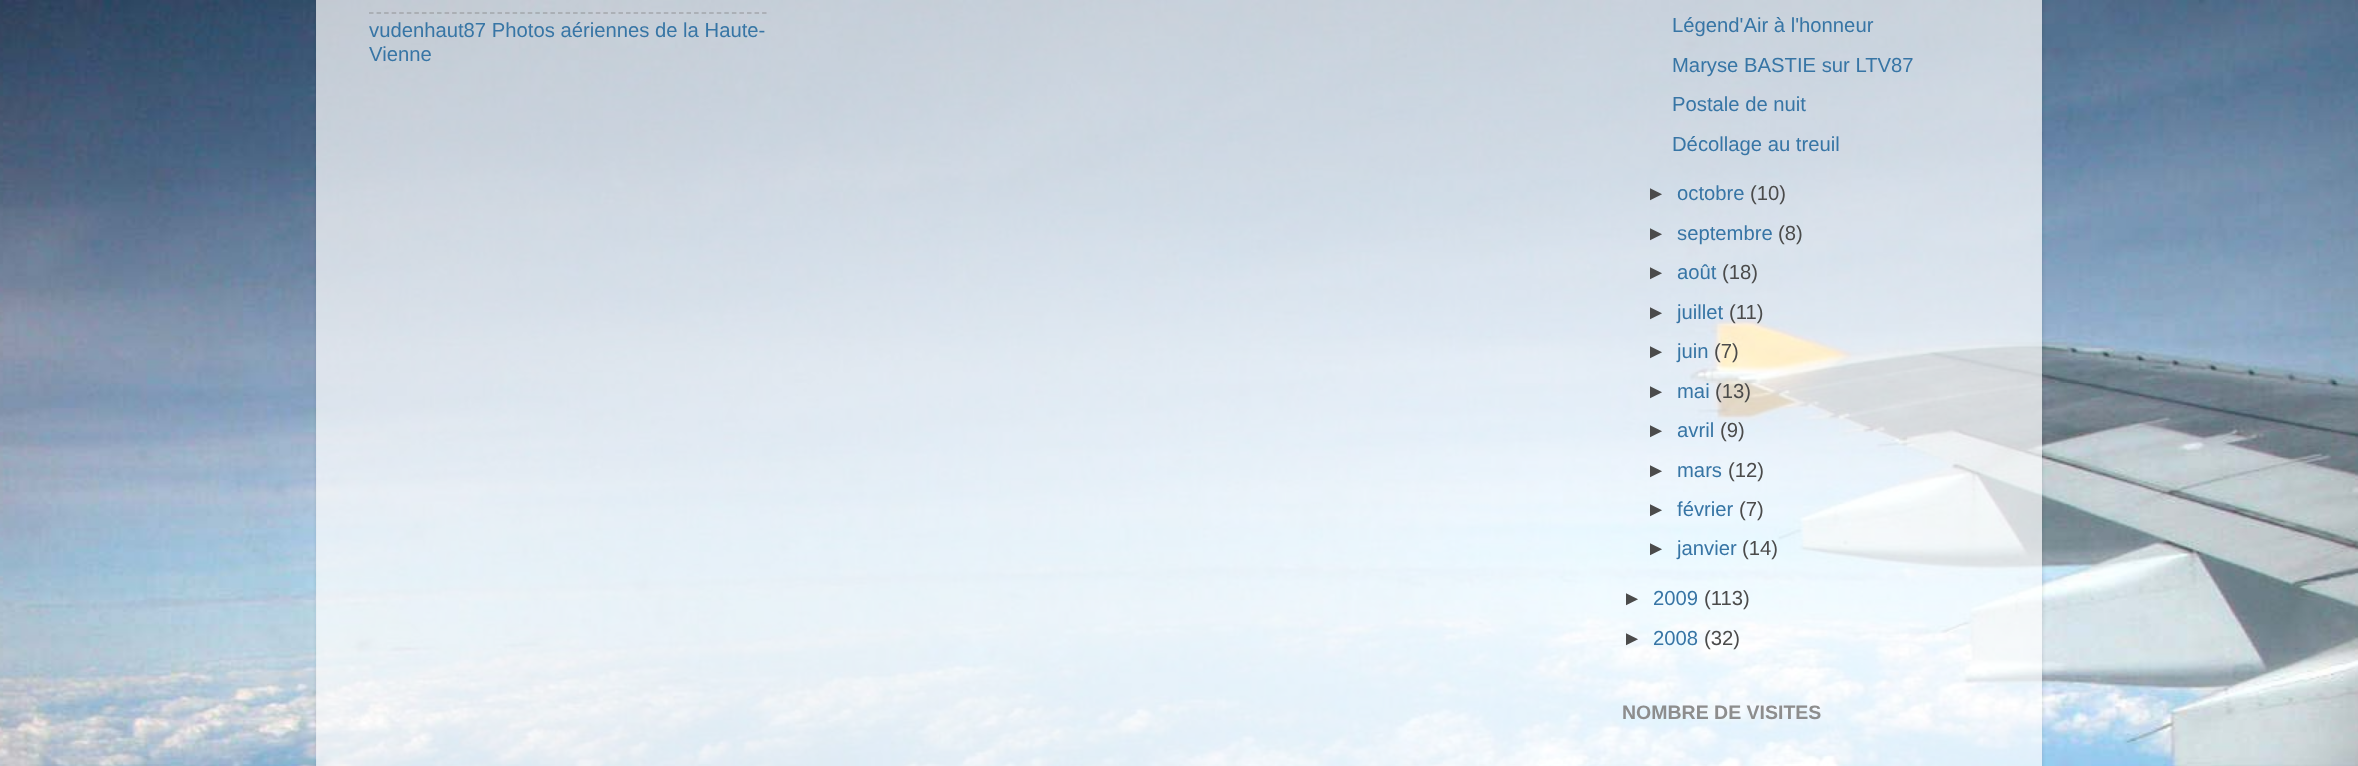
<svg xmlns="http://www.w3.org/2000/svg" width="2358" height="766">
	<defs>
		<clipPath id="clip1"><path d="M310 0H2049V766H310ZM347-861H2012C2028.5-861 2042-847.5 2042-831V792H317V-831C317-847.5 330.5-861 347-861Z" clip-rule="evenodd" /></clipPath>
	</defs>
	<rect width="100%" height="100%" fill="#FFFFFF" />
	<image x="0" y="0" width="2358" height="766" href="assets/img1.png" />
	<g clip-path="url(#clip1)">
		<rect x="317" y="-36" width="1725" height="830" rx="30" fill="#000000" fill-opacity="0.15" filter="blur(2px)" />
	</g>
	<rect x="316" y="0" width="1726" height="766" fill="#FFFFFF" fill-opacity="0.7" />
	<path d="M369 13H766.5" fill="none" stroke="#808080" stroke-opacity="0.5" stroke-width="1.5" stroke-dasharray="4.5 3.06" />
	<g font-family="Liberation Sans" font-size="20.25" fill="#3775A5">
		<text x="369" y="37">vudenhaut87 Photos aériennes de la Haute-</text>
		<text x="369" y="61">Vienne</text>
		<text x="1672" y="32">Légend'Air à l'honneur</text>
		<text x="1672" y="72">Maryse BASTIE sur LTV87</text>
		<text x="1672" y="111">Postale de nuit</text>
		<text x="1672" y="151">Décollage au treuil</text>
	</g>
	<text x="1646" y="200" font-family="Liberation Sans" font-size="20.25" fill="#4B4B4B">►</text>
	<text x="1677" y="200" font-family="Liberation Sans" font-size="20.25" fill="#3775A5">octobre</text>
	<g font-family="Liberation Sans" font-size="20.25" fill="#4B4B4B">
		<text x="1750" y="200">(10)</text>
		<text x="1646" y="240">►</text>
	</g>
	<text x="1677" y="240" font-family="Liberation Sans" font-size="20.25" fill="#3775A5">septembre</text>
	<g font-family="Liberation Sans" font-size="20.25" fill="#4B4B4B">
		<text x="1778" y="240">(8)</text>
		<text x="1646" y="279">►</text>
	</g>
	<text x="1677" y="279" font-family="Liberation Sans" font-size="20.25" fill="#3775A5">août</text>
	<g font-family="Liberation Sans" font-size="20.25" fill="#4B4B4B">
		<text x="1722" y="279">(18)</text>
		<text x="1646" y="319">►</text>
	</g>
	<text x="1677" y="319" font-family="Liberation Sans" font-size="20.25" fill="#3775A5">juillet</text>
	<g font-family="Liberation Sans" font-size="20.25" fill="#4B4B4B">
		<text x="1729" y="319">(11)</text>
		<text x="1646" y="358">►</text>
	</g>
	<text x="1677" y="358" font-family="Liberation Sans" font-size="20.25" fill="#3775A5">juin</text>
	<g font-family="Liberation Sans" font-size="20.25" fill="#4B4B4B">
		<text x="1714" y="358">(7)</text>
		<text x="1646" y="398">►</text>
	</g>
	<text x="1677" y="398" font-family="Liberation Sans" font-size="20.25" fill="#3775A5">mai</text>
	<g font-family="Liberation Sans" font-size="20.25" fill="#4B4B4B">
		<text x="1715" y="398">(13)</text>
		<text x="1646" y="437">►</text>
	</g>
	<text x="1677" y="437" font-family="Liberation Sans" font-size="20.25" fill="#3775A5">avril</text>
	<g font-family="Liberation Sans" font-size="20.25" fill="#4B4B4B">
		<text x="1720" y="437">(9)</text>
		<text x="1646" y="477">►</text>
	</g>
	<text x="1677" y="477" font-family="Liberation Sans" font-size="20.25" fill="#3775A5">mars</text>
	<g font-family="Liberation Sans" font-size="20.25" fill="#4B4B4B">
		<text x="1728" y="477">(12)</text>
		<text x="1646" y="516">►</text>
	</g>
	<text x="1677" y="516" font-family="Liberation Sans" font-size="20.25" fill="#3775A5">février</text>
	<g font-family="Liberation Sans" font-size="20.25" fill="#4B4B4B">
		<text x="1739" y="516">(7)</text>
		<text x="1646" y="555">►</text>
	</g>
	<text x="1677" y="555" font-family="Liberation Sans" font-size="20.25" fill="#3775A5">janvier</text>
	<g font-family="Liberation Sans" font-size="20.25" fill="#4B4B4B">
		<text x="1742" y="555">(14)</text>
		<text x="1622" y="605">►</text>
	</g>
	<text x="1653" y="605" font-family="Liberation Sans" font-size="20.25" fill="#3775A5">2009</text>
	<g font-family="Liberation Sans" font-size="20.25" fill="#4B4B4B">
		<text x="1704" y="605">(113)</text>
		<text x="1622" y="645">►</text>
	</g>
	<text x="1653" y="645" font-family="Liberation Sans" font-size="20.25" fill="#3775A5">2008</text>
	<text x="1704" y="645" font-family="Liberation Sans" font-size="20.25" fill="#4B4B4B">(32)</text>
	<text x="1622" y="719" font-family="Liberation Sans" font-size="19.5" font-weight="700" fill="#8D8D8D">NOMBRE DE VISITES</text>
</svg>
